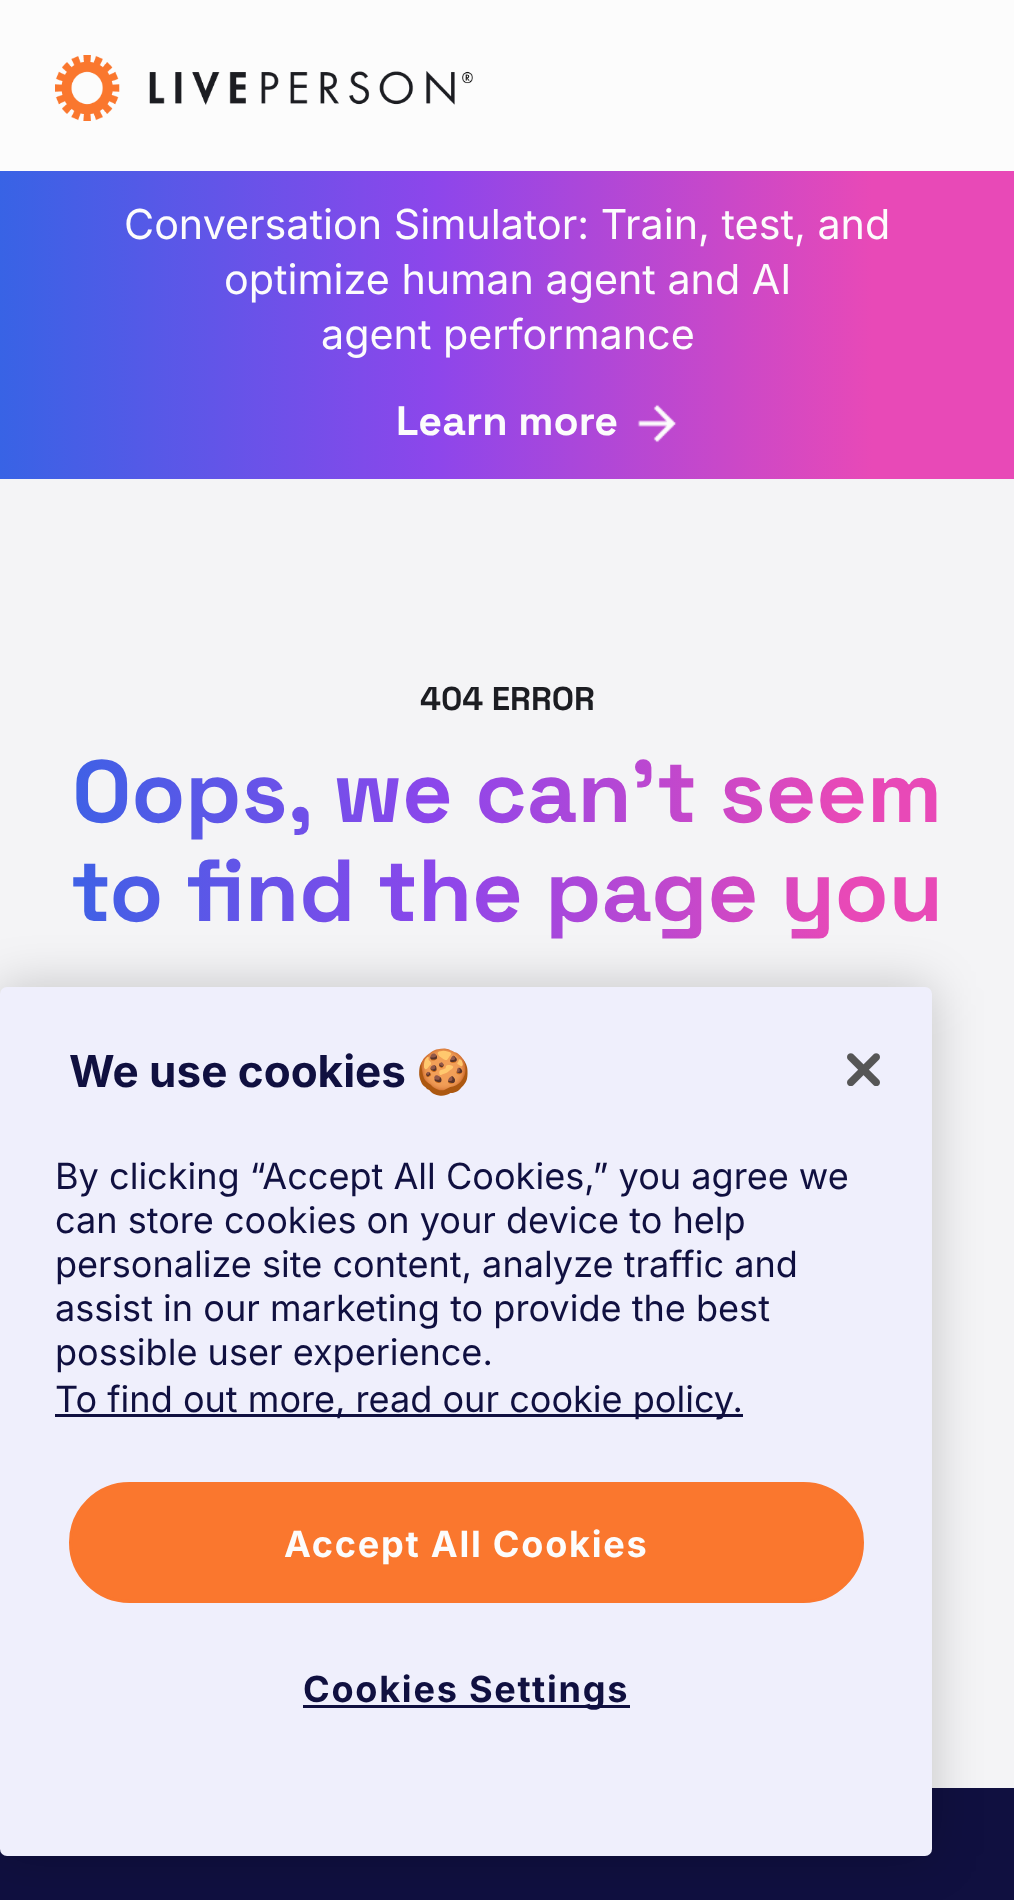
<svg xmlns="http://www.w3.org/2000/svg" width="1014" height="1900">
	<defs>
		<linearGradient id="g1" gradientUnits="userSpaceOnUse" x1="39" y1="891" x2="976" y2="891"><stop offset="0" stop-color="#3863E5" /><stop offset="0.43" stop-color="#8D46EB" /><stop offset="0.86" stop-color="#E849B7" /></linearGradient>
		<linearGradient id="g2" gradientUnits="userSpaceOnUse" x1="0" y1="325" x2="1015" y2="324"><stop offset="0" stop-color="#3863E5" /><stop offset="0.43" stop-color="#8D46EB" /><stop offset="0.86" stop-color="#E849B7" /></linearGradient>
	</defs>
	<rect width="100%" height="100%" fill="#F4F4F6" />
	<rect x="0" y="0" width="1014" height="171" fill="#FCFCFC" />
	<image x="55" y="55" width="418" height="66" href="assets/img1.png" />
	<rect x="0" y="171" width="1014" height="308" fill="url(#g2)" />
	<g font-family="Inter" font-size="41.25" fill="#FCFCFC">
		<text x="124" y="239">Conversation Simulator: Train, test, and</text>
		<text x="224" y="294">optimize human agent and AI</text>
		<text x="321" y="349">agent performance</text>
	</g>
	<text x="396" y="435" font-family="Space Grotesk" font-size="41.25" font-weight="700" fill="#FCFCFC">Learn more</text>
	<image x="637" y="404" width="40" height="39" href="assets/img2.png" />
	<text x="420" y="710" font-family="Space Grotesk" font-size="33" font-weight="700" fill="#1C1D22">404 ERROR</text>
	<g font-family="Space Grotesk" font-size="88" font-weight="700" fill="url(#g1)">
		<text x="72" y="822">Oops, we can’t seem</text>
		<text x="71" y="921">to find the page you</text>
	</g>
	<rect x="0" y="1788" width="1014" height="112" fill="#101040" />
	<rect x="0" y="987" width="932" height="869" rx="7" fill="#000000" fill-opacity="0.2" filter="blur(25px)" />
	<rect x="0" y="987" width="932" height="869" rx="7" fill="#EFEFFC" />
	<text x="69" y="1087" font-family="Inter" font-size="44" font-weight="700" fill="#101040">We use cookies</text>
	<text x="416" y="1087" font-family="Noto Color Emoji" font-size="44" font-weight="700" fill="#101040">🍪</text>
	<g font-family="Inter" font-size="36.1" fill="#101040">
		<text x="55" y="1189">By clicking “Accept All Cookies,” you agree we</text>
		<text x="55" y="1233">can store cookies on your device to help</text>
		<text x="55" y="1277">personalize site content, analyze traffic and</text>
		<text x="55" y="1321">assist in our marketing to provide the best</text>
		<text x="55" y="1365">possible user experience.</text>
	</g>
	<rect x="55" y="1414" width="688" height="3" fill="#101040" />
	<text x="55" y="1412" font-family="Inter" font-size="36.1" fill="#101040">To find out more, read our cookie policy.</text>
	<image x="847" y="1053" width="33" height="33" href="assets/img3.png" />
	<rect x="70.5" y="1483.5" width="792" height="118" rx="59" fill="#FA772E" stroke="#FA772E" stroke-width="3" />
	<text x="284" y="1557" font-family="Inter" font-size="36.1" font-weight="700" letter-spacing="1.75" fill="#FCFCFC">Accept All Cookies</text>
	<rect x="303" y="1705" width="327" height="3" fill="#101040" />
	<text x="303" y="1702" font-family="Inter" font-size="36.1" font-weight="700" letter-spacing="1.75" fill="#101040">Cookies Settings</text>
</svg>
